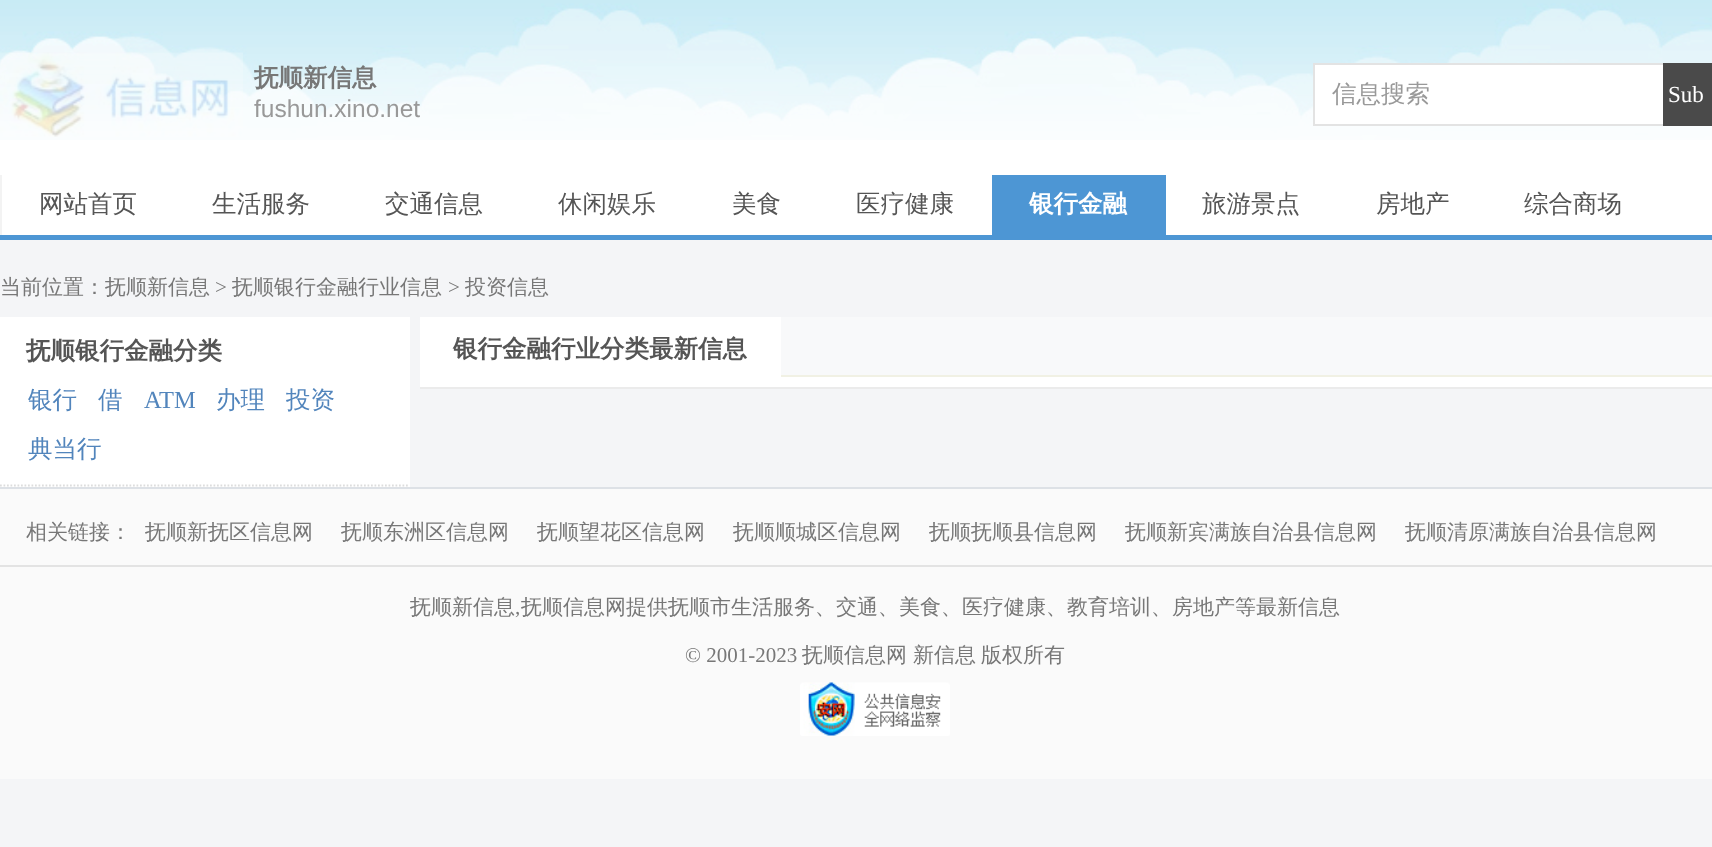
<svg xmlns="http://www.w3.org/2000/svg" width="1712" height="847">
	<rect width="100%" height="100%" fill="#F4F5F7" />
	<rect x="0" y="140" width="1712" height="35" fill="#FFFFFF" />
	<image x="0" y="0" width="1712" height="140" href="assets/img1.png" />
	<image x="0" y="52" width="243" height="85" href="assets/img2.png" />
	<text x="254" y="86" font-family="WenQuanYi Zen Hei" font-size="24.5" font-weight="700" fill="#777777">抚顺新信息</text>
	<text x="254" y="117" font-family="Liberation Sans" font-size="24.5" fill="#999999">fushun.xino.net</text>
	<rect x="1315" y="65" width="348" height="59" fill="#FFFFFF" />
	<rect x="1313" y="63" width="351" height="2" fill="#E3E3E3" />
	<rect x="1313" y="124" width="351" height="2" fill="#E3E3E3" />
	<rect x="1313" y="63" width="2" height="63" fill="#E3E3E3" />
	<text x="1332" y="102" font-family="WenQuanYi Zen Hei" font-size="24.5" font-weight="500" fill="#999999">信息搜索</text>
	<rect x="1663" y="63" width="49" height="63" fill="#4A4A4A" />
	<text x="1668" y="102" font-family="Liberation Serif" font-size="23" fill="#FFFFFF">Sub</text>
	<rect x="2" y="175" width="1710" height="60" fill="#FFFFFF" />
	<rect x="0" y="235" width="1712" height="5" fill="#4D96D4" />
	<rect x="0" y="175" width="2" height="60" fill="#F3F3F3" />
	<g font-family="WenQuanYi Zen Hei" font-size="24.5" font-weight="500" fill="#555555">
		<text x="39" y="212">网站首页</text>
		<text x="212" y="212">生活服务</text>
		<text x="385" y="212">交通信息</text>
		<text x="558" y="212">休闲娱乐</text>
		<text x="732" y="212">美食</text>
		<text x="856" y="212">医疗健康</text>
	</g>
	<rect x="992" y="175" width="174" height="60" fill="#4D96D4" />
	<text x="1029" y="212" font-family="WenQuanYi Zen Hei" font-size="24.5" font-weight="700" fill="#FFFFFF">银行金融</text>
	<g font-family="WenQuanYi Zen Hei" font-size="24.5" font-weight="500" fill="#555555">
		<text x="1202" y="212">旅游景点</text>
		<text x="1376" y="212">房地产</text>
		<text x="1524" y="212">综合商场</text>
	</g>
	<text x="0" y="294" font-family="WenQuanYi Zen Hei" font-size="21" font-weight="500" fill="#777777">当前位置：抚顺新信息</text>
	<text x="215" y="294" font-family="Liberation Serif" font-size="21" fill="#777777">&gt;</text>
	<text x="232" y="294" font-family="WenQuanYi Zen Hei" font-size="21" font-weight="500" fill="#777777">抚顺银行金融行业信息</text>
	<text x="448" y="294" font-family="Liberation Serif" font-size="21" fill="#777777">&gt;</text>
	<text x="465" y="294" font-family="WenQuanYi Zen Hei" font-size="21" font-weight="500" fill="#777777">投资信息</text>
	<rect x="0" y="317" width="410" height="170" fill="#FFFFFF" />
	<path d="M0 485.5H409.5" fill="none" stroke="#DDDDDD" stroke-width="1.8" stroke-dasharray="1.75 1.75" />
	<text x="26" y="359" font-family="WenQuanYi Zen Hei" font-size="24.5" font-weight="700" fill="#555555">抚顺银行金融分类</text>
	<g font-family="WenQuanYi Zen Hei" font-size="24.5" font-weight="500" fill="#5285BC">
		<text x="28" y="408">银行</text>
		<text x="98" y="408">借</text>
	</g>
	<text x="144" y="408" font-family="Liberation Serif" font-size="24.5" fill="#5285BC">ATM</text>
	<g font-family="WenQuanYi Zen Hei" font-size="24.5" font-weight="500" fill="#5285BC">
		<text x="216" y="408">办理</text>
		<text x="286" y="408">投资</text>
		<text x="28" y="457">典当行</text>
	</g>
	<rect x="781" y="377" width="931" height="10" fill="#FFFFFF" />
	<rect x="420" y="387" width="1292" height="2" fill="#EBEBEB" />
	<rect x="781" y="317" width="931" height="58" fill="#F8F9FA" />
	<rect x="781" y="375" width="931" height="2" fill="#F1F1E4" />
	<rect x="420" y="317" width="361" height="70" fill="#FFFFFF" />
	<text x="453" y="357" font-family="WenQuanYi Zen Hei" font-size="24.5" font-weight="700" fill="#555555">银行金融行业分类最新信息</text>
	<rect x="0" y="489" width="1712" height="290" fill="#FAFAFA" />
	<rect x="0" y="487" width="1712" height="2" fill="#DDE1E6" />
	<rect x="0" y="565" width="1712" height="2" fill="#E3E3E3" />
	<g font-family="WenQuanYi Zen Hei" font-size="21" font-weight="500" fill="#777777">
		<text x="26" y="539">相关链接：</text>
		<text x="145" y="539">抚顺新抚区信息网</text>
		<text x="341" y="539">抚顺东洲区信息网</text>
		<text x="537" y="539">抚顺望花区信息网</text>
		<text x="733" y="539">抚顺顺城区信息网</text>
		<text x="929" y="539">抚顺抚顺县信息网</text>
		<text x="1125" y="539">抚顺新宾满族自治县信息网</text>
		<text x="1405" y="539">抚顺清原满族自治县信息网</text>
		<text x="410" y="614">抚顺新信息</text>
	</g>
	<text x="515" y="614" font-family="Liberation Serif" font-size="21" fill="#777777">,</text>
	<text x="521" y="614" font-family="WenQuanYi Zen Hei" font-size="21" font-weight="500" fill="#777777">抚顺信息网提供抚顺市生活服务、交通、美食、医疗健康、教育培训、房地产等最新信息</text>
	<text x="685" y="662" font-family="Liberation Serif" font-size="21" fill="#777777">© 2001-2023</text>
	<g font-family="WenQuanYi Zen Hei" font-size="21" font-weight="500" fill="#777777">
		<text x="802" y="662">抚顺信息网</text>
		<text x="913" y="662">新信息</text>
		<text x="981" y="662">版权所有</text>
	</g>
	<image x="800" y="682" width="150" height="54" href="assets/img3.png" />
</svg>
